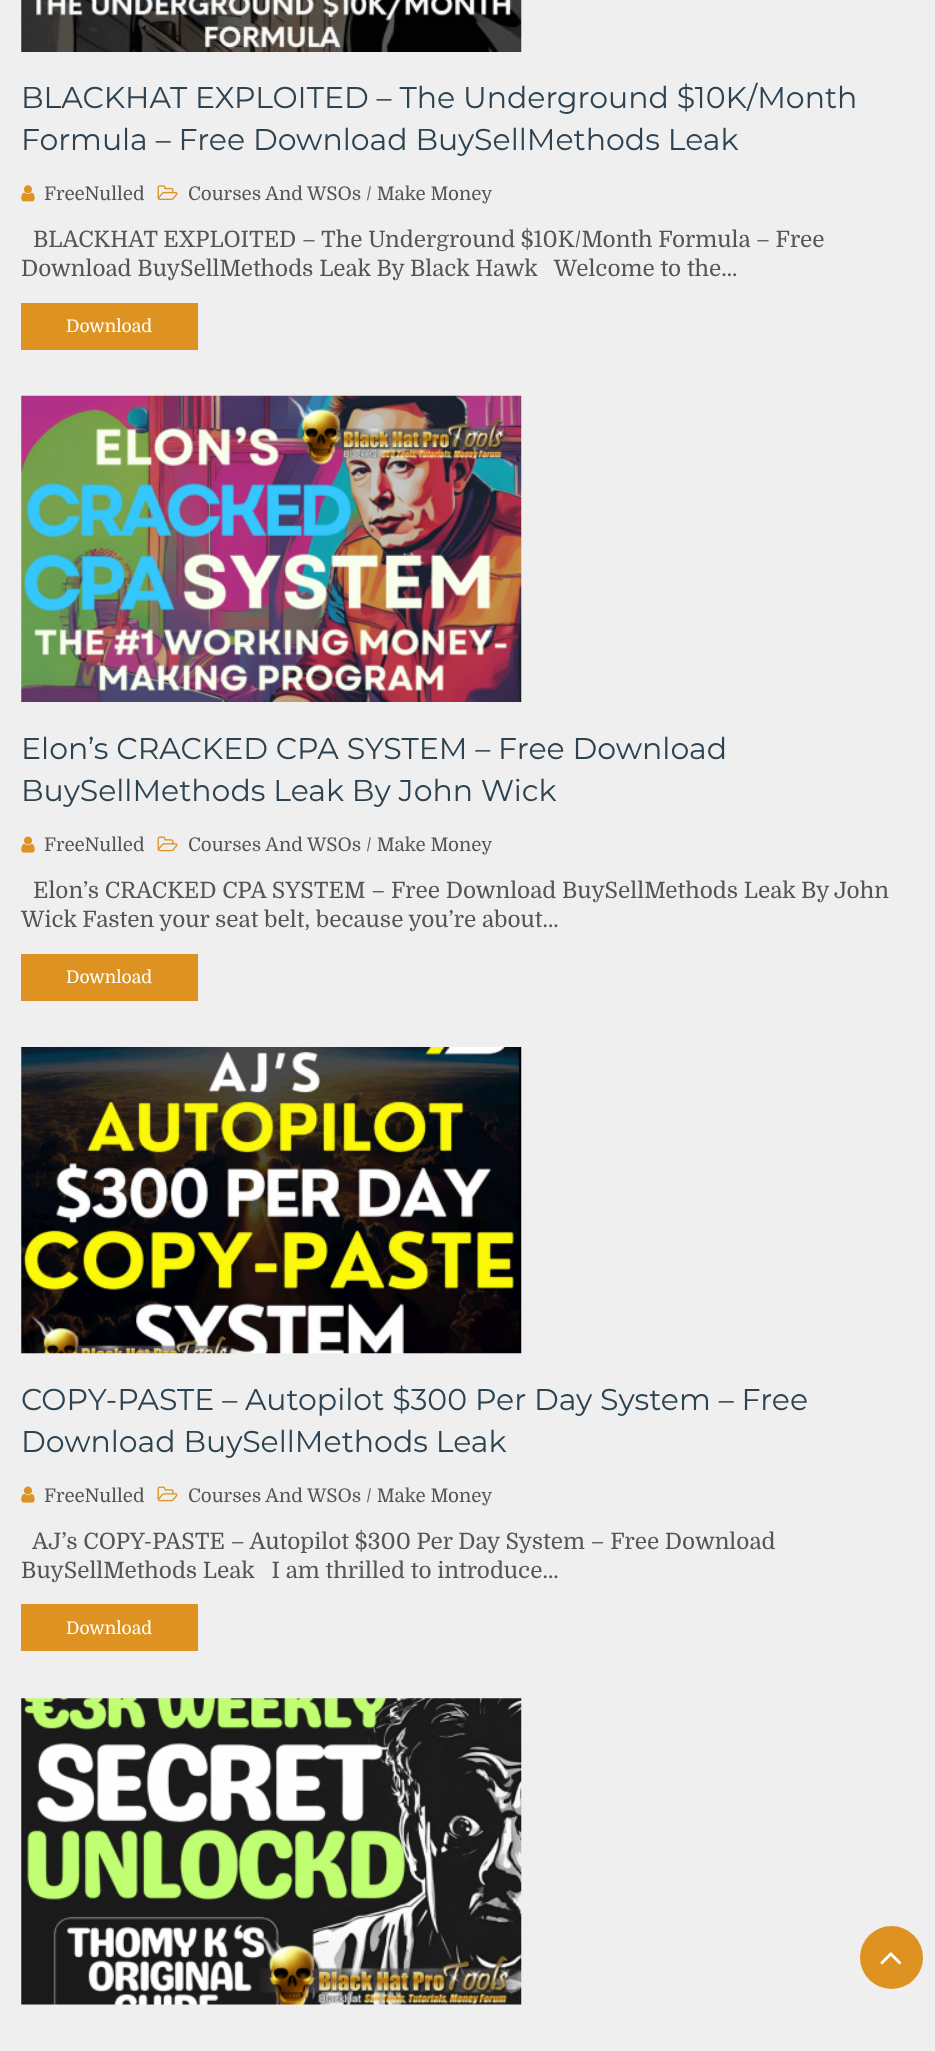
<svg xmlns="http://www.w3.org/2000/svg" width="935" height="2051">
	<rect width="100%" height="100%" fill="#EFEFEF" />
	<image x="21" y="0" width="501" height="52" href="assets/img1.png" />
	<g font-family="Montserrat" font-size="30" fill="#2D4351">
		<text x="21" y="108">BLACKHAT EXPLOITED – The Underground $10K/Month</text>
		<text x="21" y="150">Formula – Free Download BuySellMethods Leak</text>
	</g>
	<image x="21" y="185" width="14" height="17" href="assets/img2.png" />
	<text x="44" y="200" font-family="Domine" font-size="18.75" fill="#555555">FreeNulled</text>
	<image x="157" y="185" width="21" height="15" href="assets/img3.png" />
	<text x="188" y="200" font-family="Domine" font-size="18.75" fill="#555555">Courses And WSOs / Make Money</text>
	<g font-family="Domine" font-size="22.5" fill="#555555">
		<text x="33" y="247">BLACKHAT EXPLOITED – The Underground $10K/Month Formula – Free</text>
		<text x="21" y="276" xml:space="preserve">Download BuySellMethods Leak By Black Hawk   Welcome to the…</text>
	</g>
	<rect x="21" y="303" width="177" height="47" fill="#DD9221" />
	<text x="66" y="332" font-family="Domine" font-size="17.5" fill="#FFFFFF">Download</text>
	<image x="21" y="395" width="501" height="307" href="assets/img4.png" />
	<g font-family="Montserrat" font-size="30" fill="#2D4351">
		<text x="21" y="759">Elon’s CRACKED CPA SYSTEM – Free Download</text>
		<text x="21" y="801">BuySellMethods Leak By John Wick</text>
	</g>
	<image x="21" y="836" width="14" height="17" href="assets/img5.png" />
	<text x="44" y="851" font-family="Domine" font-size="18.75" fill="#555555">FreeNulled</text>
	<image x="157" y="836" width="21" height="16" href="assets/img6.png" />
	<text x="188" y="851" font-family="Domine" font-size="18.75" fill="#555555">Courses And WSOs / Make Money</text>
	<g font-family="Domine" font-size="22.5" fill="#555555">
		<text x="33" y="898">Elon’s CRACKED CPA SYSTEM – Free Download BuySellMethods Leak By John</text>
		<text x="21" y="927">Wick Fasten your seat belt, because you’re about…</text>
	</g>
	<rect x="21" y="954" width="177" height="47" fill="#DD9221" />
	<text x="66" y="983" font-family="Domine" font-size="17.5" fill="#FFFFFF">Download</text>
	<image x="21" y="1047" width="501" height="307" href="assets/img7.png" />
	<g font-family="Montserrat" font-size="30" fill="#2D4351">
		<text x="21" y="1410">COPY-PASTE – Autopilot $300 Per Day System – Free</text>
		<text x="21" y="1452">Download BuySellMethods Leak</text>
	</g>
	<image x="21" y="1486" width="14" height="17" href="assets/img5.png" />
	<text x="44" y="1502" font-family="Domine" font-size="18.75" fill="#555555">FreeNulled</text>
	<image x="157" y="1486" width="21" height="16" href="assets/img6.png" />
	<text x="188" y="1502" font-family="Domine" font-size="18.75" fill="#555555">Courses And WSOs / Make Money</text>
	<g font-family="Domine" font-size="22.5" fill="#555555">
		<text x="32" y="1549">AJ’s COPY-PASTE – Autopilot $300 Per Day System – Free Download</text>
		<text x="21" y="1578" xml:space="preserve">BuySellMethods Leak   I am thrilled to introduce…</text>
	</g>
	<rect x="21" y="1604" width="177" height="47" fill="#DD9221" />
	<text x="66" y="1634" font-family="Domine" font-size="17.5" fill="#FFFFFF">Download</text>
	<image x="21" y="1698" width="501" height="307" href="assets/img8.png" />
	<circle cx="891.5" cy="1957.5" r="31.5" fill="#DD9221" />
	<image x="880" y="1952" width="22" height="13" href="assets/img9.png" />
</svg>
